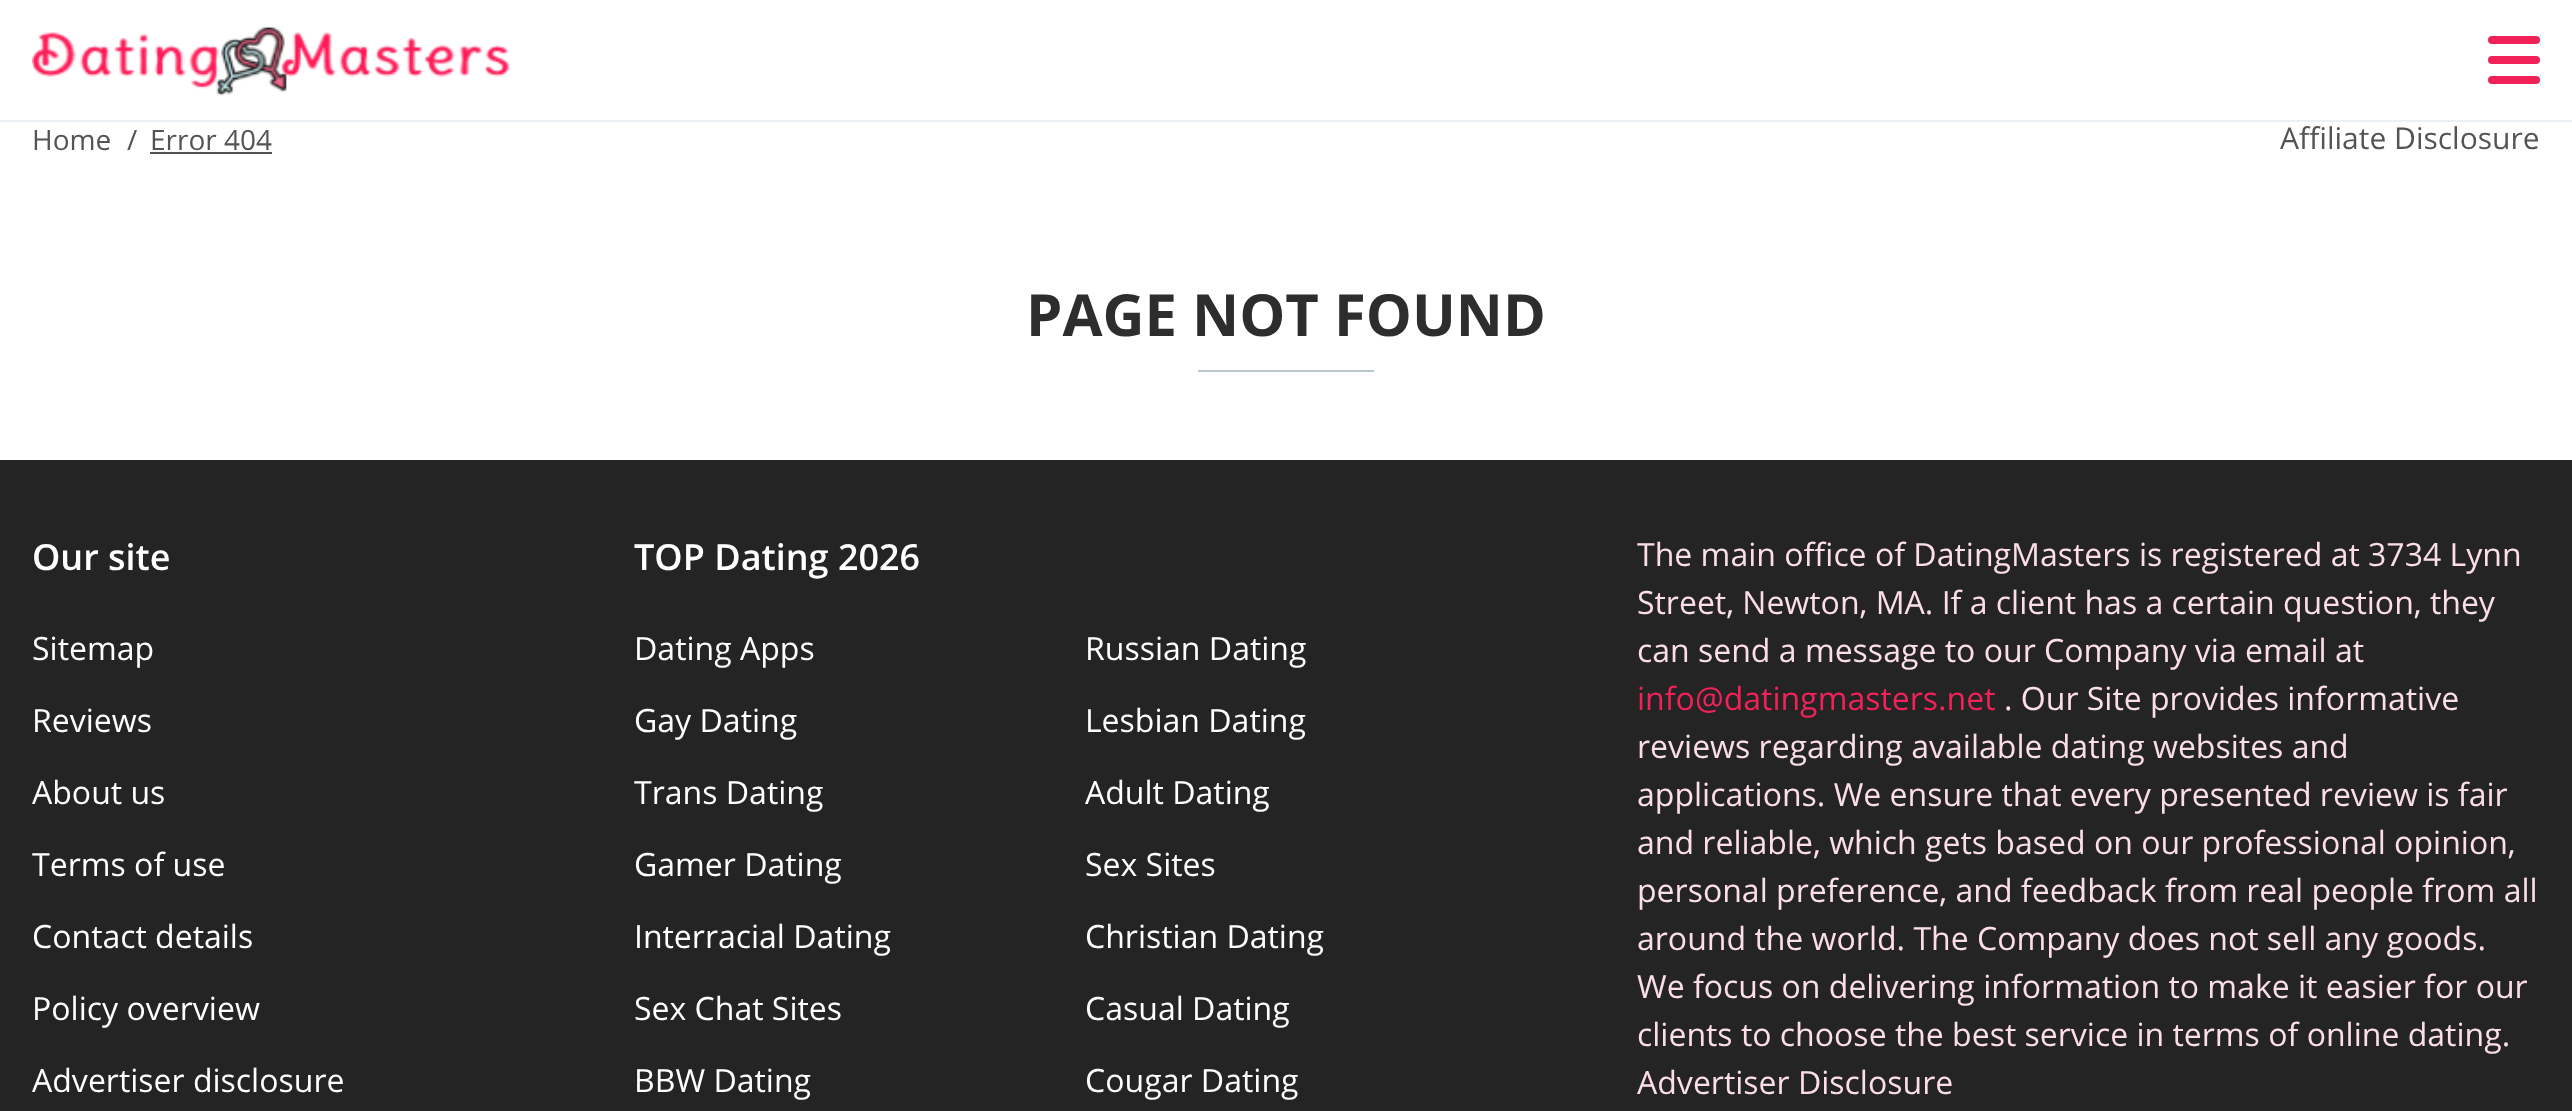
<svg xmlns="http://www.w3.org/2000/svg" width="2572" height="1111">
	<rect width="100%" height="100%" fill="#FFFFFF" />
	<rect x="0" y="120" width="2572" height="2" fill="#EAF0F3" />
	<image x="32" y="27" width="479" height="69" href="assets/img1.png" />
	<rect x="2488" y="36" width="52" height="8" rx="4" fill="#F02257" />
	<rect x="2488" y="56" width="52" height="8" rx="4" fill="#F02257" />
	<rect x="2488" y="76" width="52" height="8" rx="4" fill="#F02257" />
	<g font-family="Open Sans" font-size="28" fill="#545454">
		<text x="32" y="150">Home</text>
		<text x="127" y="150">/</text>
		<text x="150" y="150">Error 404</text>
	</g>
	<rect x="150" y="152" width="122" height="2" fill="#545454" />
	<text x="2280" y="149" font-family="Open Sans" font-size="30" fill="#545454">Affiliate Disclosure</text>
	<text x="1026" y="336" font-family="Open Sans" font-size="58" font-weight="700" fill="#2E2D2D">PAGE NOT FOUND</text>
	<rect x="1198" y="370" width="176" height="2" fill="#B9C6CC" />
	<rect x="0" y="460" width="2572" height="651" fill="#242424" />
	<text x="32" y="570" font-family="Open Sans" font-size="36" font-weight="600" fill="#FFFFFF">Our site</text>
	<g font-family="Open Sans" font-size="32" fill="#FFFFFF">
		<text x="32" y="660">Sitemap</text>
		<text x="32" y="732">Reviews</text>
		<text x="32" y="804">About us</text>
		<text x="32" y="876">Terms of use</text>
		<text x="32" y="948">Contact details</text>
		<text x="32" y="1020">Policy overview</text>
		<text x="32" y="1092">Advertiser disclosure</text>
	</g>
	<text x="634" y="570" font-family="Open Sans" font-size="36" font-weight="600" fill="#FFFFFF">TOP Dating 2026</text>
	<g font-family="Open Sans" font-size="32" fill="#FFFFFF">
		<text x="634" y="660">Dating Apps</text>
		<text x="1085" y="660">Russian Dating</text>
		<text x="634" y="732">Gay Dating</text>
		<text x="1085" y="732">Lesbian Dating</text>
		<text x="634" y="804">Trans Dating</text>
		<text x="1085" y="804">Adult Dating</text>
		<text x="634" y="876">Gamer Dating</text>
		<text x="1085" y="876">Sex Sites</text>
		<text x="634" y="948">Interracial Dating</text>
		<text x="1085" y="948">Christian Dating</text>
		<text x="634" y="1020">Sex Сhat Sites</text>
		<text x="1085" y="1020">Casual Dating</text>
		<text x="634" y="1092">BBW Dating</text>
		<text x="1085" y="1092">Cougar Dating</text>
	</g>
	<g font-family="Open Sans" font-size="32" fill="#FBDEE6">
		<text x="1637" y="566">The main office of DatingMasters is registered at 3734 Lynn</text>
		<text x="1637" y="614">Street, Newton, MA. If a client has a certain question, they</text>
		<text x="1637" y="662">can send a message to our Company via email at</text>
	</g>
	<text x="1637" y="710" font-family="Open Sans" font-size="32" fill="#F02257">info@datingmasters.net</text>
	<g font-family="Open Sans" font-size="32" fill="#FBDEE6">
		<text x="2004" y="710">. Our Site provides informative</text>
		<text x="1637" y="758">reviews regarding available dating websites and</text>
		<text x="1637" y="806">applications. We ensure that every presented review is fair</text>
		<text x="1637" y="854">and reliable, which gets based on our professional opinion,</text>
		<text x="1637" y="902">personal preference, and feedback from real people from all</text>
		<text x="1637" y="950">around the world. The Company does not sell any goods.</text>
		<text x="1637" y="998">We focus on delivering information to make it easier for our</text>
		<text x="1637" y="1046">clients to choose the best service in terms of online dating.</text>
		<text x="1637" y="1094">Advertiser Disclosure</text>
	</g>
</svg>
